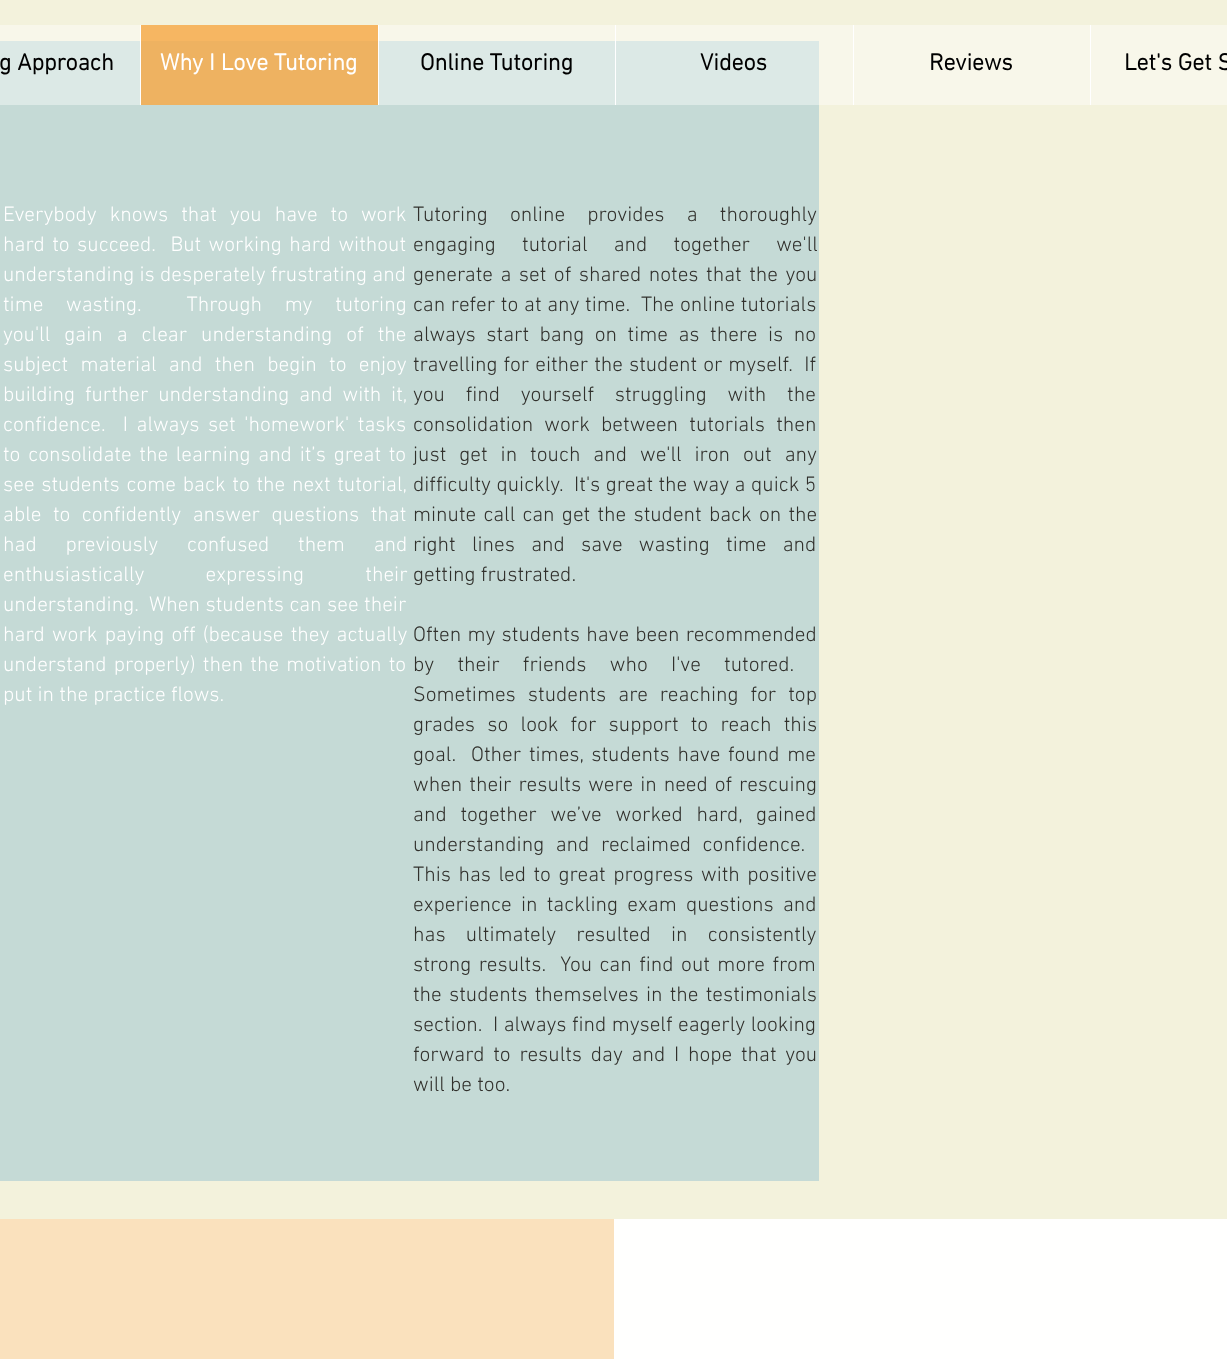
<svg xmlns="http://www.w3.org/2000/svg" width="1227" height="1359">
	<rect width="100%" height="100%" fill="#F3F2DC" />
	<rect x="0" y="25" width="1227" height="80" fill="#F8F7EA" />
	<rect x="141" y="25" width="237" height="16" fill="#F6B662" />
	<rect x="0" y="41" width="819" height="64" fill="#DCE9E6" />
	<text x="-1" y="70" font-family="'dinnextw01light'" font-size="23.75" font-weight="700" fill="#000000">g Approach</text>
	<rect x="140" y="25" width="1" height="80" fill="#FFFFFF" />
	<rect x="141" y="41" width="237" height="64" fill="#EEB261" />
	<text x="160" y="70" font-family="'dinnextw01light'" font-size="23.75" font-weight="700" fill="#FFFFFF">Why I Love Tutoring</text>
	<rect x="378" y="25" width="1" height="80" fill="#FFFFFF" />
	<text x="420" y="70" font-family="'dinnextw01light'" font-size="23.75" font-weight="700" fill="#000000">Online Tutoring</text>
	<rect x="615" y="25" width="1" height="80" fill="#FFFFFF" />
	<text x="700" y="70" font-family="'dinnextw01light'" font-size="23.75" font-weight="700" fill="#000000">Videos</text>
	<rect x="853" y="25" width="1" height="80" fill="#FFFFFF" />
	<text x="929" y="70" font-family="'dinnextw01light'" font-size="23.75" font-weight="700" fill="#000000">Reviews</text>
	<rect x="1090" y="25" width="1" height="80" fill="#FFFFFF" />
	<text x="1124" y="70" font-family="'dinnextw01light'" font-size="23.75" font-weight="700" fill="#000000">Let's Get S</text>
	<rect x="0" y="105" width="819" height="1076" fill="#C5DAD6" />
	<g font-family="'dinnextw01light'" font-size="21.25" font-weight="300" fill="#FFFFFF">
		<text x="3" y="221" word-spacing="7.75">Everybody knows that you have to work</text>
		<text x="3" y="251" word-spacing="2.25" xml:space="preserve">hard to succeed.  But working hard without</text>
		<text x="3" y="281">understanding is desperately frustrating and</text>
		<text x="3" y="311" word-spacing="17.5" xml:space="preserve">time wasting.  Through my tutoring</text>
		<text x="3" y="341" word-spacing="8.75">you'll gain a clear understanding of the</text>
		<text x="3" y="371" word-spacing="7">subject material and then begin to enjoy</text>
		<text x="3" y="401" word-spacing="4.5">building further understanding and with it,</text>
		<text x="3" y="431" word-spacing="3.5" xml:space="preserve">confidence.  I always set 'homework' tasks</text>
		<text x="3" y="461" word-spacing="2.5">to consolidate the learning and it’s great to</text>
		<text x="3" y="491" word-spacing="1.5">see students come back to the next tutorial,</text>
		<text x="3" y="521" word-spacing="6.25">able to confidently answer questions that</text>
		<text x="3" y="551" word-spacing="23.5">had previously confused them and</text>
		<text x="3" y="581" word-spacing="56">enthusiastically expressing their</text>
		<text x="3" y="611" word-spacing="0.25" xml:space="preserve">understanding.  When students can see their</text>
		<text x="3" y="641" word-spacing="2">hard work paying off (because they actually</text>
		<text x="3" y="671" word-spacing="2">understand properly) then the motivation to</text>
		<text x="3" y="701">put in the practice flows.</text>
	</g>
	<g font-family="'dinnextw01light'" font-size="21.25" font-weight="300" fill="#31302C">
		<text x="413" y="221" word-spacing="17">Tutoring online provides a thoroughly</text>
		<text x="413" y="251" word-spacing="21">engaging tutorial and together we'll</text>
		<text x="413" y="281" word-spacing="2.25">generate a set of shared notes that the you</text>
		<text x="413" y="311" word-spacing="0.5" xml:space="preserve">can refer to at any time.  The online tutorials</text>
		<text x="413" y="341" word-spacing="5.25">always start bang on time as there is no</text>
		<text x="413" y="371" word-spacing="0.75" xml:space="preserve">travelling for either the student or myself.  If</text>
		<text x="413" y="401" word-spacing="15.5">you find yourself struggling with the</text>
		<text x="413" y="431" word-spacing="6">consolidation work between tutorials then</text>
		<text x="413" y="461" word-spacing="7.75">just get in touch and we'll iron out any</text>
		<text x="413" y="491" word-spacing="0.25" xml:space="preserve">difficulty quickly.  It's great the way a quick 5</text>
		<text x="413" y="521" word-spacing="2">minute call can get the student back on the</text>
		<text x="413" y="551" word-spacing="11">right lines and save wasting time and</text>
		<text x="413" y="581">getting frustrated.</text>
		<text x="413" y="641" word-spacing="1">Often my students have been recommended</text>
		<text x="413" y="671" word-spacing="18">by their friends who I've tutored.</text>
		<text x="413" y="701" word-spacing="6.75">Sometimes students are reaching for top</text>
		<text x="413" y="731" word-spacing="7">grades so look for support to reach this</text>
		<text x="413" y="761" word-spacing="2.5" xml:space="preserve">goal.  Other times, students have found me</text>
		<text x="413" y="791" word-spacing="1.75">when their results were in need of rescuing</text>
		<text x="413" y="821" word-spacing="8.5">and together we’ve worked hard, gained</text>
		<text x="413" y="851" word-spacing="6.25">understanding and reclaimed confidence.</text>
		<text x="413" y="881" word-spacing="2.25">This has led to great progress with positive</text>
		<text x="413" y="911" word-spacing="4">experience in tackling exam questions and</text>
		<text x="413" y="941" word-spacing="15">has ultimately resulted in consistently</text>
		<text x="413" y="971" word-spacing="2.25" xml:space="preserve">strong results.  You can find out more from</text>
		<text x="413" y="1001" word-spacing="2">the students themselves in the testimonials</text>
		<text x="413" y="1031" word-spacing="0.25" xml:space="preserve">section.  I always find myself eagerly looking</text>
		<text x="413" y="1061" word-spacing="3.5">forward to results day and I hope that you</text>
		<text x="413" y="1091">will be too.</text>
	</g>
	<rect x="0" y="1219" width="614" height="140" fill="#FAE1BD" />
	<rect x="614" y="1219" width="613" height="140" fill="#FFFFFE" />
</svg>
